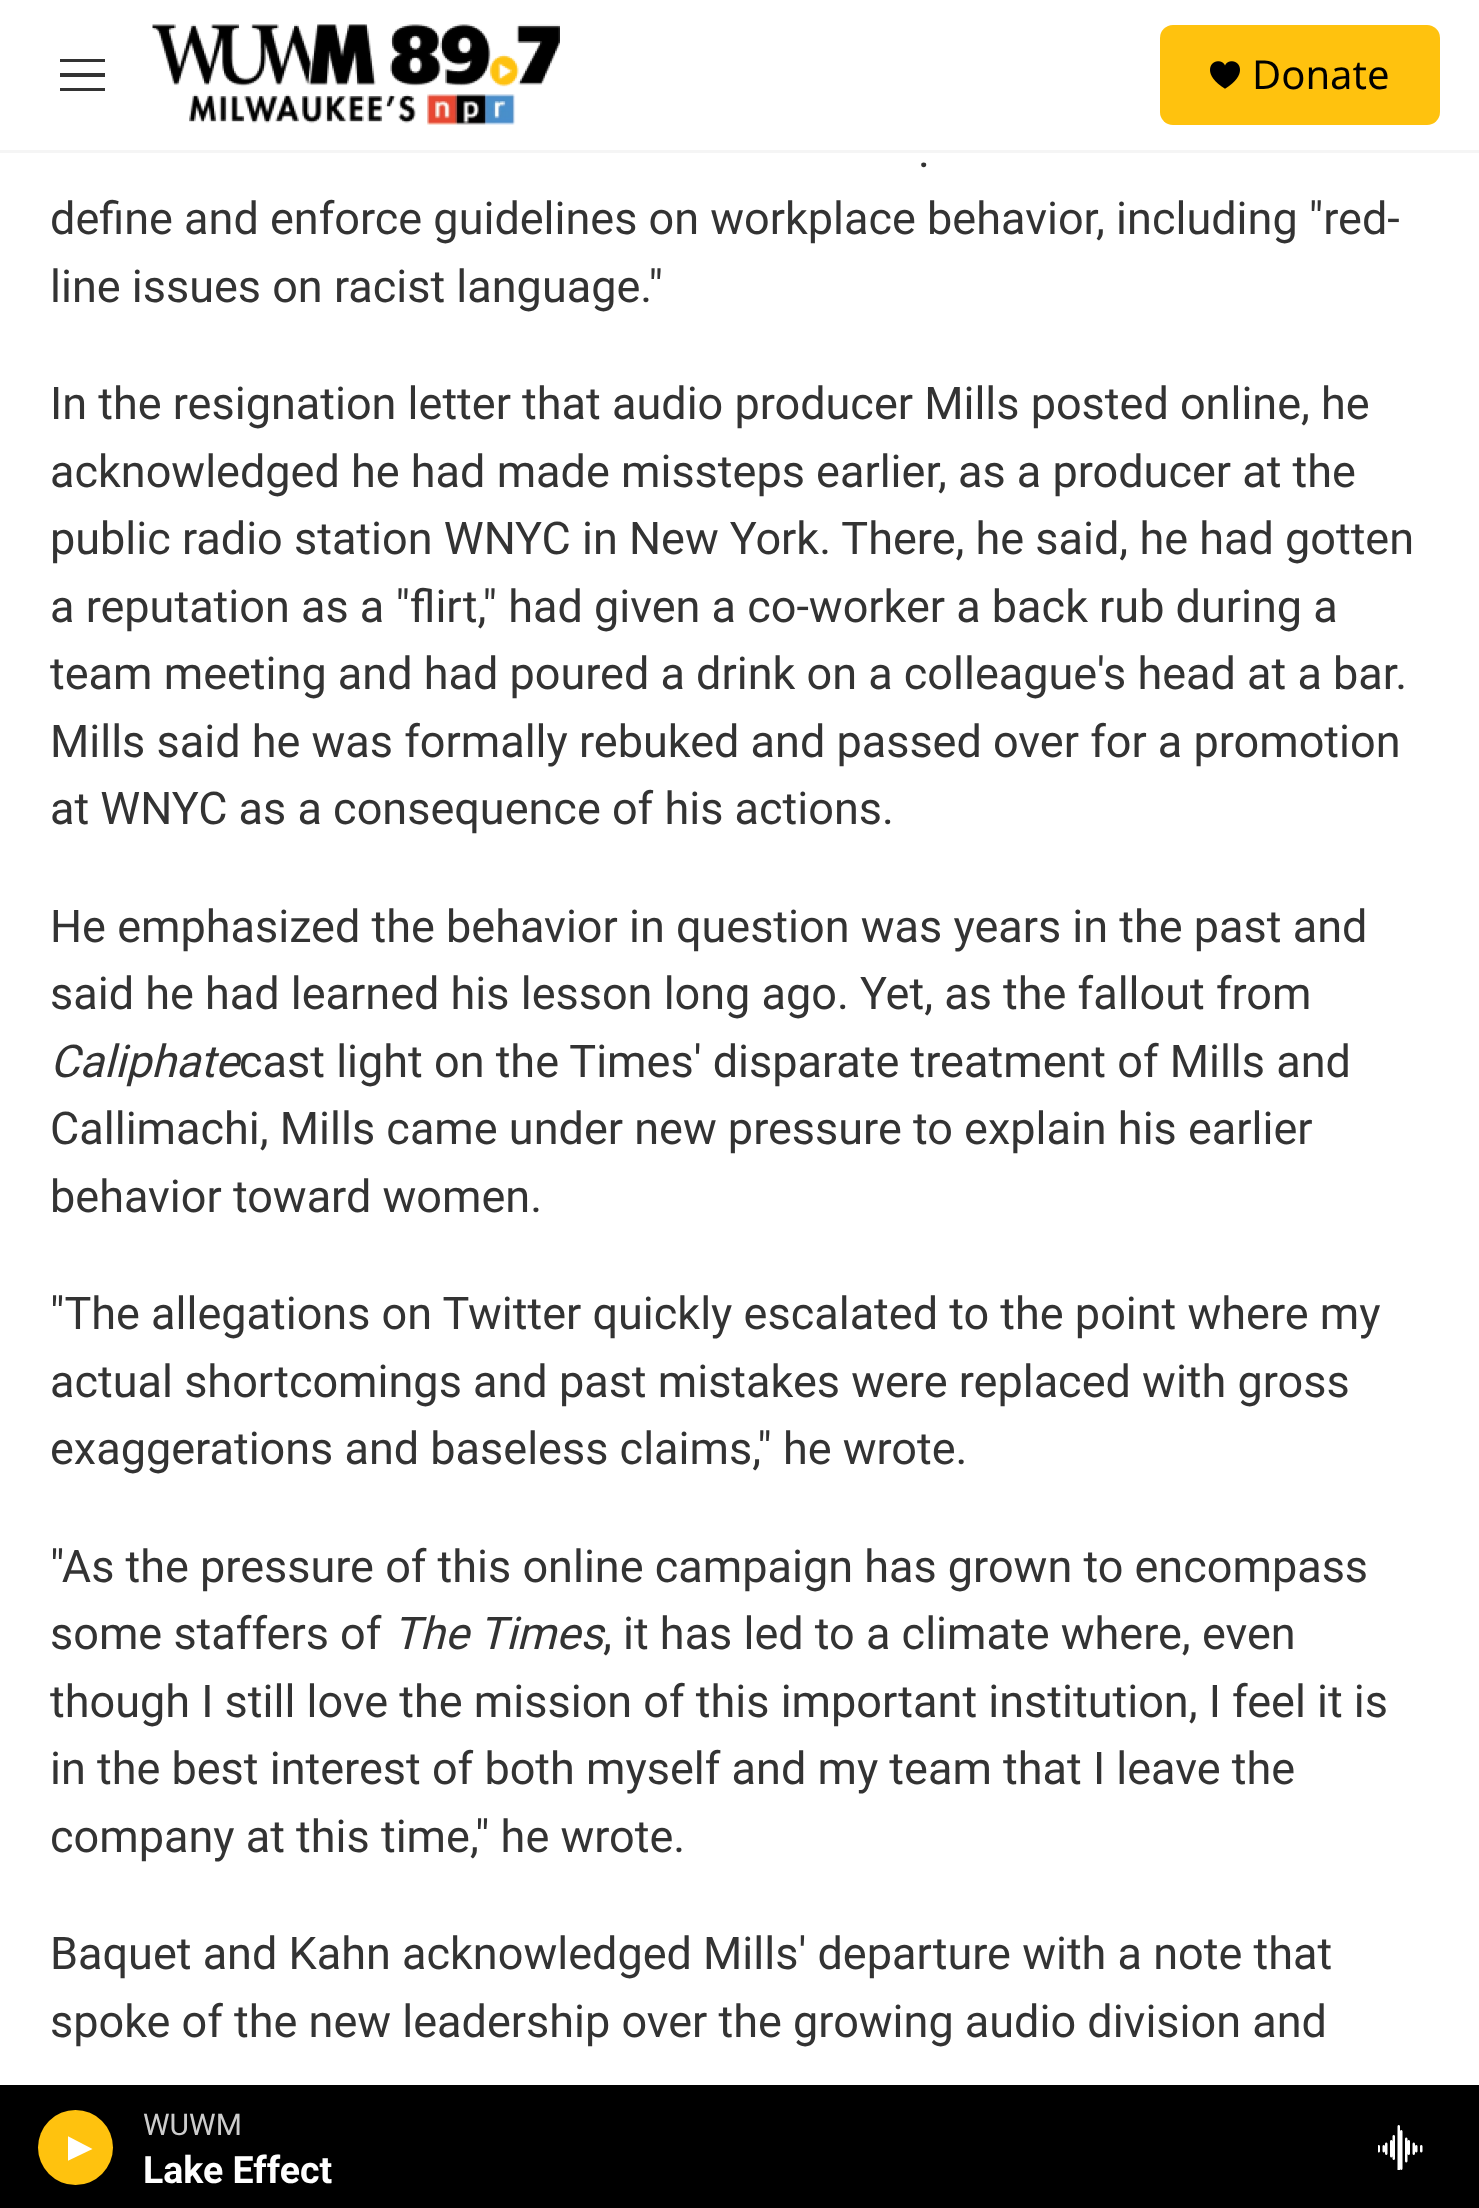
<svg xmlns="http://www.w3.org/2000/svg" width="1479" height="2208">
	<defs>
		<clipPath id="clip1"><rect x="68" y="2135" width="25" height="28" /></clipPath>
	</defs>
	<rect width="100%" height="100%" fill="#FFFFFF" />
	<rect x="0" y="150" width="1479" height="3" fill="#F5F5F5" />
	<path d="M60 77V73H105V77ZM60 62V59H105V62ZM60 91V88H105V91Z" fill="#333333" fill-rule="evenodd" />
	<image x="152" y="24" width="408" height="101" href="assets/img1.png" />
	<rect x="1160" y="25" width="280" height="100" rx="13" fill="#FFC20E" />
	<image x="1210" y="61" width="30" height="28" href="assets/img2.png" />
	<text x="1252" y="89" font-family="Noto Sans" font-size="40" fill="#000000">Donate</text>
	<rect x="0" y="2085" width="1479" height="123" fill="#000000" />
	<circle cx="75.5" cy="2147.5" r="37.5" fill="#FFC20E" />
	<g clip-path="url(#clip1)">
		<path d="M67.5 2136L92.5 2149L67.5 2161Z" fill="#FFFFFF" />
	</g>
	<text x="143" y="2135" font-family="Roboto" font-size="30" fill="#CCCCCC">WUWM</text>
	<text x="143" y="2183" font-family="Roboto" font-size="37.5" font-weight="700" fill="#FFFFFF">Lake Effect</text>
	<image x="1378" y="2125" width="45" height="45" href="assets/img3.png" />
	<g font-family="Roboto" font-size="45" fill="#333333">
		<text x="918" y="167">.</text>
		<text x="50" y="234">define and enforce guidelines on workplace behavior, including "red-</text>
		<text x="50" y="302">line issues on racist language."</text>
		<text x="50" y="419">In the resignation letter that audio producer Mills posted online, he</text>
		<text x="50" y="487">acknowledged he had made missteps earlier, as a producer at the</text>
		<text x="50" y="554">public radio station WNYC in New York. There, he said, he had gotten</text>
		<text x="50" y="622">a reputation as a "flirt," had given a co-worker a back rub during a</text>
		<text x="50" y="689">team meeting and had poured a drink on a colleague's head at a bar.</text>
		<text x="50" y="757">Mills said he was formally rebuked and passed over for a promotion</text>
		<text x="50" y="824">at WNYC as a consequence of his actions.</text>
		<text x="50" y="942">He emphasized the behavior in question was years in the past and</text>
		<text x="50" y="1009">said he had learned his lesson long ago. Yet, as the fallout from</text>
	</g>
	<text x="50" y="1077" font-family="Roboto" font-size="45" font-style="italic" fill="#333333">Caliphate</text>
	<g font-family="Roboto" font-size="45" fill="#333333">
		<text x="239" y="1077">cast light on the Times' disparate treatment of Mills and</text>
		<text x="50" y="1144">Callimachi, Mills came under new pressure to explain his earlier</text>
		<text x="50" y="1212">behavior toward women.</text>
		<text x="50" y="1329">"The allegations on Twitter quickly escalated to the point where my</text>
		<text x="50" y="1397">actual shortcomings and past mistakes were replaced with gross</text>
		<text x="50" y="1464">exaggerations and baseless claims," he wrote.</text>
		<text x="50" y="1582">"As the pressure of this online campaign has grown to encompass</text>
		<text x="50" y="1649">some staffers of</text>
	</g>
	<text x="393" y="1649" font-family="Roboto" font-size="45" font-style="italic" fill="#333333">The Times</text>
	<g font-family="Roboto" font-size="45" fill="#333333">
		<text x="603" y="1649">, it has led to a climate where, even</text>
		<text x="50" y="1717">though I still love the mission of this important institution, I feel it is</text>
		<text x="50" y="1784">in the best interest of both myself and my team that I leave the</text>
		<text x="50" y="1852">company at this time," he wrote.</text>
		<text x="50" y="1969">Baquet and Kahn acknowledged Mills' departure with a note that</text>
		<text x="50" y="2037">spoke of the new leadership over the growing audio division and</text>
	</g>
</svg>
